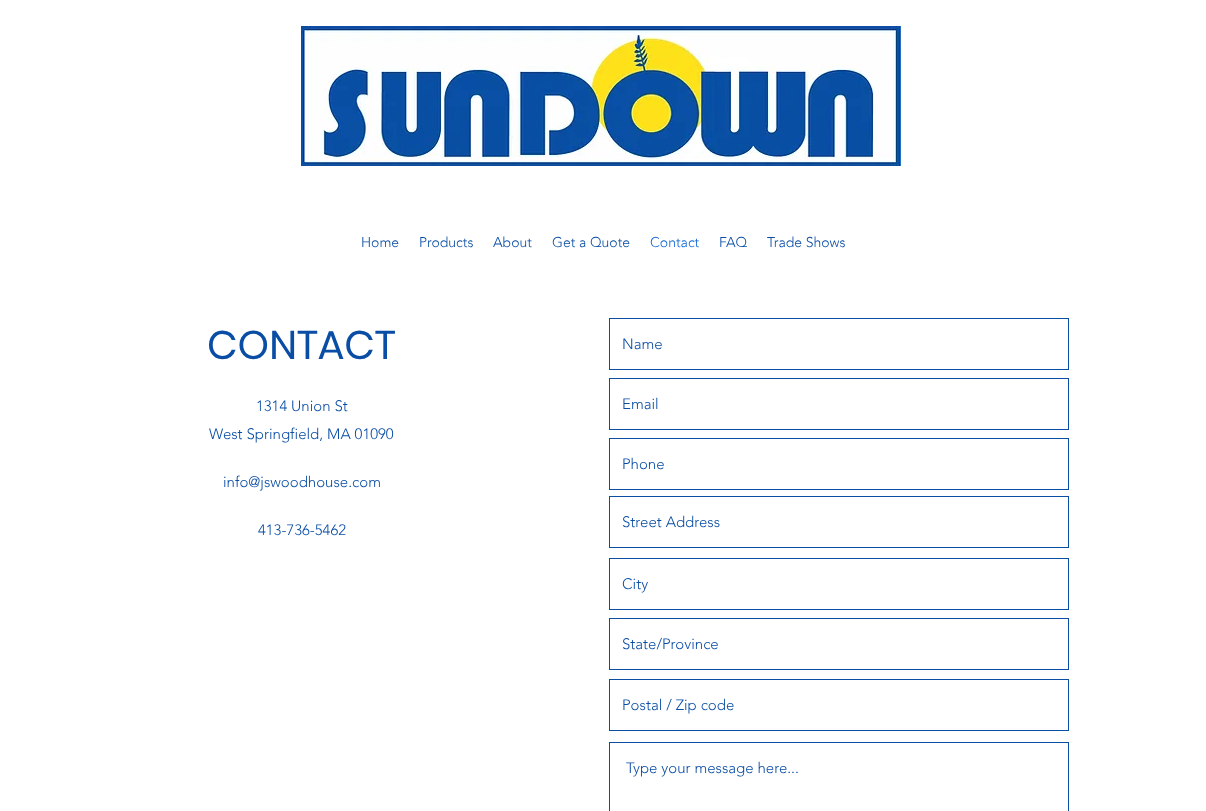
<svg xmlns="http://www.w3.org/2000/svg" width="1206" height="811">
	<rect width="100%" height="100%" fill="#FFFFFF" />
	<image x="301" y="26" width="600" height="140" href="assets/img1.png" />
	<g font-family="'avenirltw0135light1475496'" font-size="14" font-weight="300" fill="#0A4DA4">
		<text x="361" y="247">Home</text>
		<text x="419" y="247">Products</text>
		<text x="493" y="247">About</text>
		<text x="552" y="247">Get a Quote</text>
	</g>
	<text x="650" y="247" font-family="'avenirltw0135light1475496'" font-size="14" font-weight="300" fill="#0D64D4">Contact</text>
	<g font-family="'avenirltw0135light1475496'" font-size="14" font-weight="300" fill="#0A4DA4">
		<text x="719" y="247">FAQ</text>
		<text x="767" y="247">Trade Shows</text>
	</g>
	<text x="207" y="359" font-family="Poppins" font-size="40" fill="#0A4DA4">CONTACT</text>
	<g font-family="'avenirltw0135light1475496'" font-size="15" font-weight="300" fill="#0A4DA4">
		<text x="256" y="411">1314 Union St</text>
		<text x="209" y="439">West Springfield, MA 01090</text>
		<text x="223" y="487">info@jswoodhouse.com</text>
		<text x="258" y="535">413-736-5462</text>
	</g>
	<rect x="609.5" y="318.5" width="459" height="51" fill="none" stroke="#0A4DA4" />
	<text x="622" y="349" font-family="'avenirltw0135light1475496'" font-size="15" font-weight="300" fill="#0A4DA4">Name</text>
	<rect x="609.5" y="378.5" width="459" height="51" fill="none" stroke="#0A4DA4" />
	<text x="622" y="409" font-family="'avenirltw0135light1475496'" font-size="15" font-weight="300" fill="#0A4DA4">Email</text>
	<rect x="609.5" y="438.5" width="459" height="51" fill="none" stroke="#0A4DA4" />
	<text x="622" y="469" font-family="'avenirltw0135light1475496'" font-size="15" font-weight="300" fill="#0A4DA4">Phone</text>
	<rect x="609.5" y="496.5" width="459" height="51" fill="none" stroke="#0A4DA4" />
	<text x="622" y="527" font-family="'avenirltw0135light1475496'" font-size="15" font-weight="300" fill="#0A4DA4">Street Address</text>
	<rect x="609.5" y="558.5" width="459" height="51" fill="none" stroke="#0A4DA4" />
	<text x="622" y="589" font-family="'avenirltw0135light1475496'" font-size="15" font-weight="300" fill="#0A4DA4">City</text>
	<rect x="609.5" y="618.5" width="459" height="51" fill="none" stroke="#0A4DA4" />
	<text x="622" y="649" font-family="'avenirltw0135light1475496'" font-size="15" font-weight="300" fill="#0A4DA4">State/Province</text>
	<rect x="609.5" y="679.5" width="459" height="51" fill="none" stroke="#0A4DA4" />
	<text x="622" y="710" font-family="'avenirltw0135light1475496'" font-size="15" font-weight="300" fill="#0A4DA4">Postal / Zip code</text>
	<rect x="609.5" y="742.5" width="459" height="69" fill="none" stroke="#0A4DA4" />
	<text x="626" y="773" font-family="'avenirltw0135light1475496'" font-size="15" font-weight="300" fill="#0A4DA4">Type your message here...</text>
</svg>
